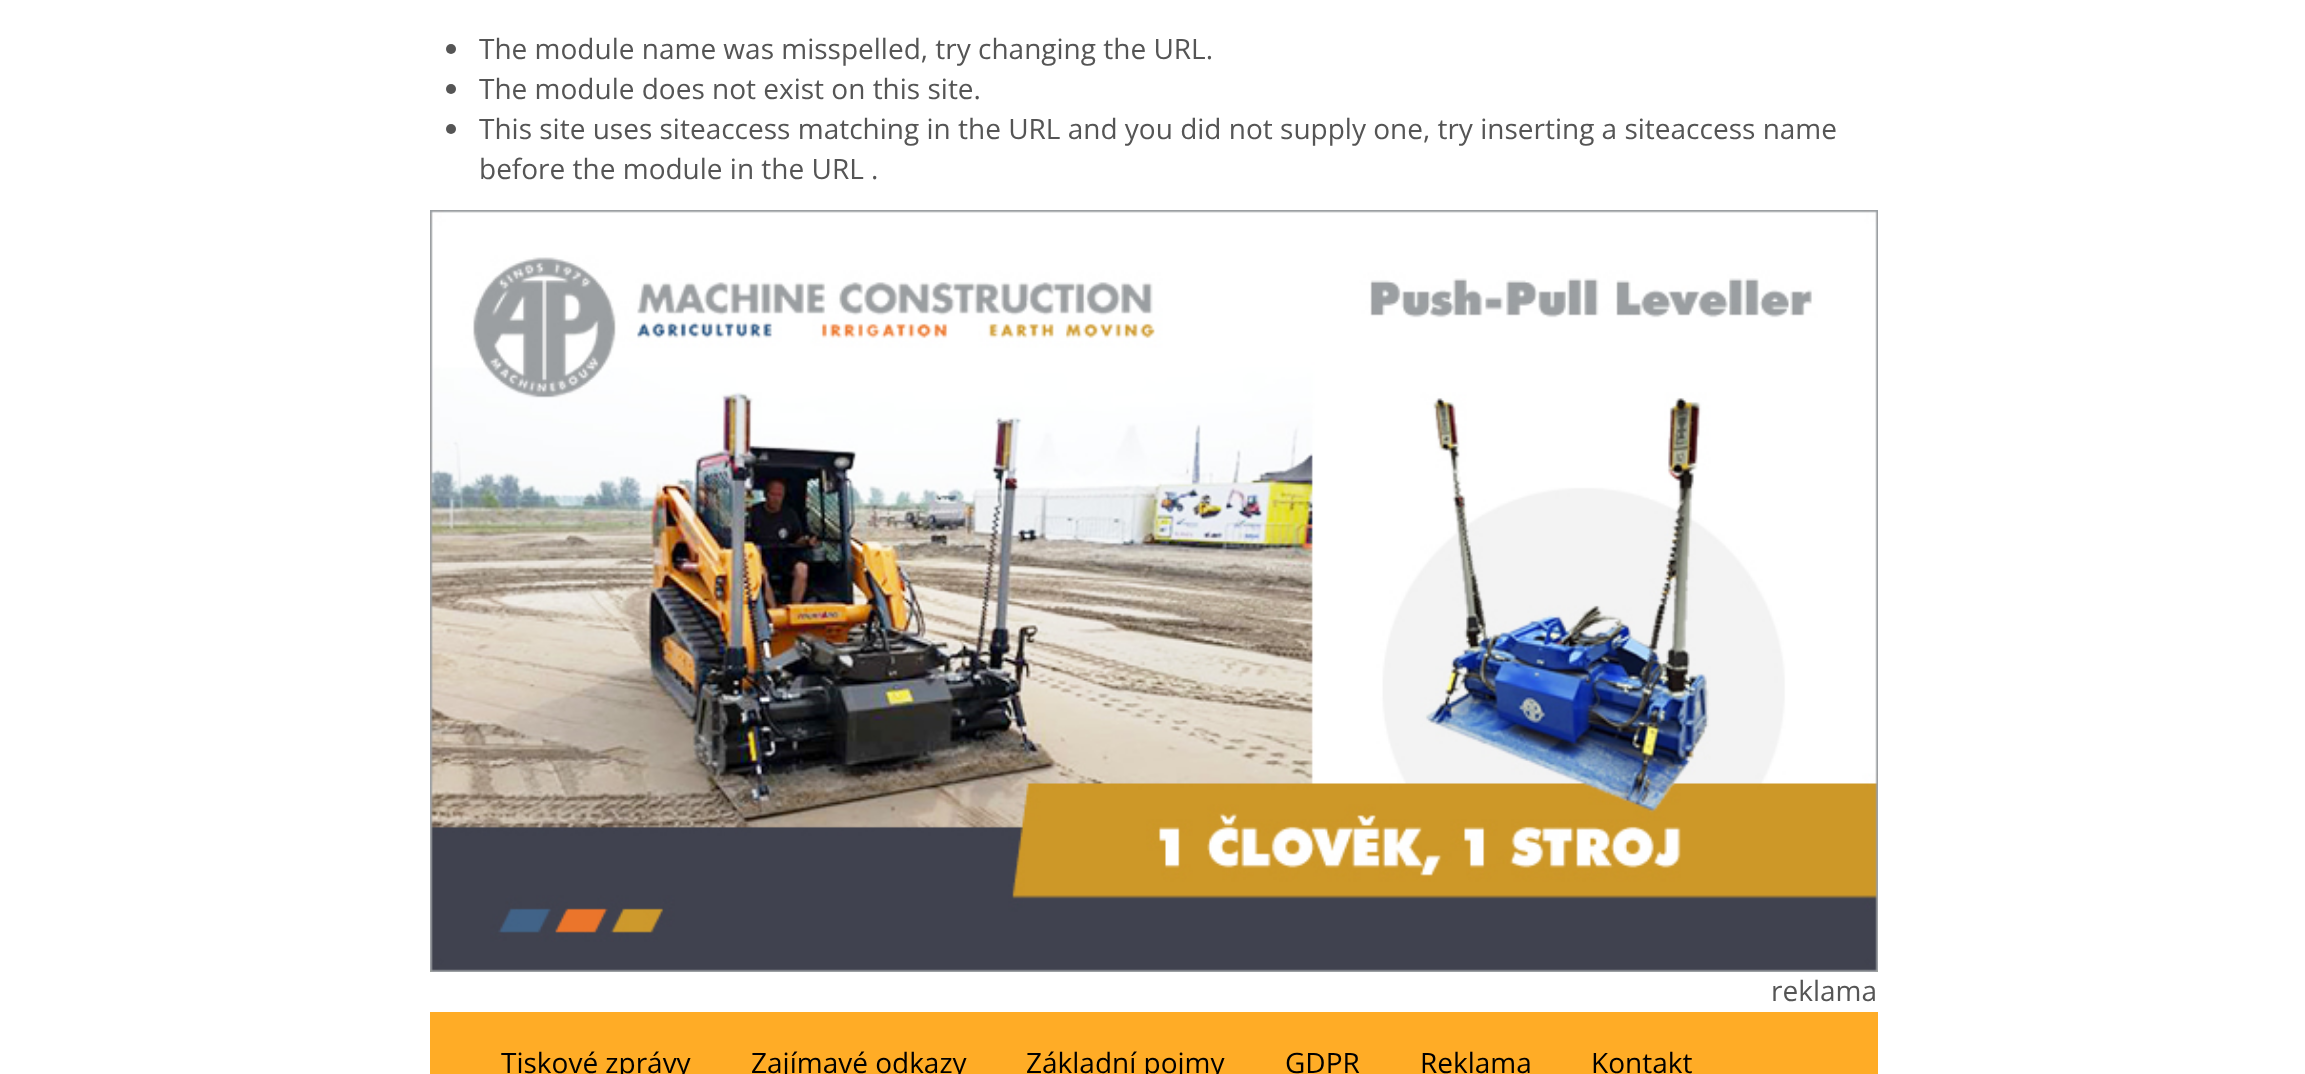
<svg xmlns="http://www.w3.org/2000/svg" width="2305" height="1074">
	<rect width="100%" height="100%" fill="#FFFFFF" />
	<circle cx="451" cy="49" r="5" fill="#555555" />
	<text x="479" y="59" font-family="Open Sans" font-size="28" fill="#555555">The module name was misspelled, try changing the URL.</text>
	<circle cx="451" cy="89" r="5" fill="#555555" />
	<text x="479" y="99" font-family="Open Sans" font-size="28" fill="#555555">The module does not exist on this site.</text>
	<circle cx="451" cy="129" r="5" fill="#555555" />
	<g font-family="Open Sans" font-size="28" fill="#555555">
		<text x="479" y="139">This site uses siteaccess matching in the URL and you did not supply one, try inserting a siteaccess name</text>
		<text x="479" y="179">before the module in the URL .</text>
	</g>
	<image x="430" y="210" width="1448" height="762" href="assets/img1.png" />
	<text x="1771" y="1001" font-family="Open Sans" font-size="28" fill="#555555">reklama</text>
	<rect x="430" y="1012" width="1448" height="62" fill="#FFAC26" />
	<g font-family="Open Sans" font-size="28" fill="#000000">
		<text x="501" y="1073">Tiskové zprávy</text>
		<text x="751" y="1073">Zajímavé odkazy</text>
		<text x="1026" y="1073">Základní pojmy</text>
		<text x="1285" y="1073">GDPR</text>
		<text x="1420" y="1073">Reklama</text>
		<text x="1591" y="1073">Kontakt</text>
	</g>
</svg>
